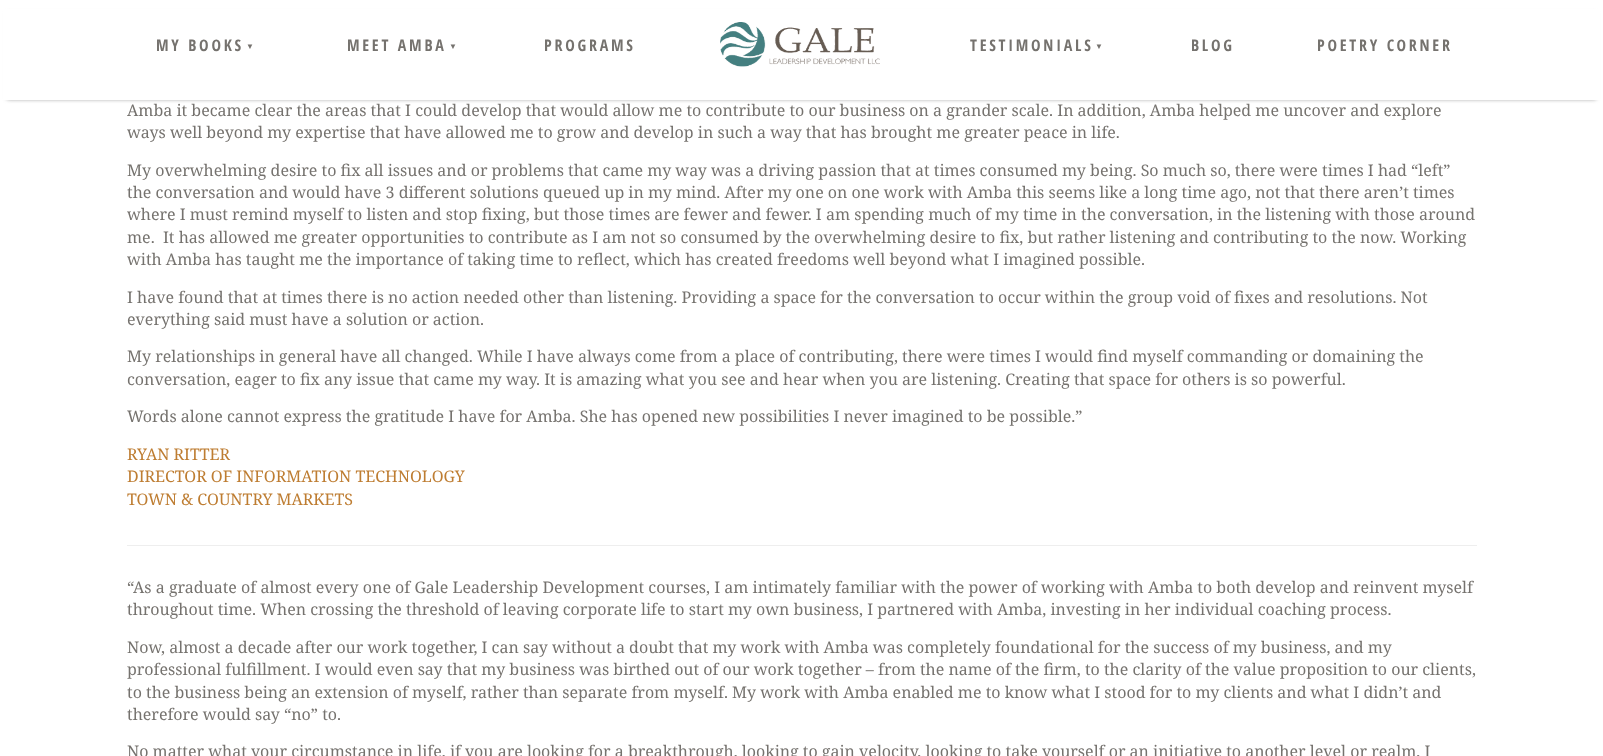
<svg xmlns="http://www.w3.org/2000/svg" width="1603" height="756">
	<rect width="100%" height="100%" fill="#FFFFFF" />
	<rect x="7" y="13" width="1589" height="86" fill="#808080" filter="blur(2px)" />
	<rect x="3" y="9" width="1597" height="91" fill="#FFFFFF" />
	<text x="156" y="51" font-family="Open Sans Condensed" font-size="16" font-weight="700" letter-spacing="2.75" fill="#75726E">MY BOOKS</text>
	<text x="246" y="49" font-family="Liberation Sans" font-size="8" fill="#75726E">▼</text>
	<text x="347" y="51" font-family="Open Sans Condensed" font-size="16" font-weight="700" letter-spacing="2.75" fill="#75726E">MEET AMBA</text>
	<text x="449" y="49" font-family="Liberation Sans" font-size="8" fill="#75726E">▼</text>
	<text x="544" y="51" font-family="Open Sans Condensed" font-size="16" font-weight="700" letter-spacing="2.75" fill="#75726E">PROGRAMS</text>
	<image x="720" y="22" width="160" height="45" href="assets/img1.png" />
	<text x="970" y="51" font-family="Open Sans Condensed" font-size="16" font-weight="700" letter-spacing="2.75" fill="#75726E">TESTIMONIALS</text>
	<text x="1095" y="49" font-family="Liberation Sans" font-size="8" fill="#75726E">▼</text>
	<g font-family="Open Sans Condensed" font-size="16" font-weight="700" letter-spacing="2.75" fill="#75726E">
		<text x="1191" y="51">BLOG</text>
		<text x="1317" y="51">POETRY CORNER</text>
	</g>
	<g font-family="Noto Serif" font-size="16" fill="#75726E">
		<text x="127" y="116">Amba it became clear the areas that I could develop that would allow me to contribute to our business on a grander scale. In addition, Amba helped me uncover and explore</text>
		<text x="127" y="138">ways well beyond my expertise that have allowed me to grow and develop in such a way that has brought me greater peace in life.</text>
		<text x="127" y="176">My overwhelming desire to fix all issues and or problems that came my way was a driving passion that at times consumed my being. So much so, there were times I had “left”</text>
		<text x="127" y="198">the conversation and would have 3 different solutions queued up in my mind. After my one on one work with Amba this seems like a long time ago, not that there aren’t times</text>
		<text x="127" y="220">where I must remind myself to listen and stop fixing, but those times are fewer and fewer. I am spending much of my time in the conversation, in the listening with those around</text>
		<text x="127" y="243" xml:space="preserve">me.  It has allowed me greater opportunities to contribute as I am not so consumed by the overwhelming desire to fix, but rather listening and contributing to the now. Working</text>
		<text x="127" y="265">with Amba has taught me the importance of taking time to reflect, which has created freedoms well beyond what I imagined possible.</text>
		<text x="127" y="303">I have found that at times there is no action needed other than listening. Providing a space for the conversation to occur within the group void of fixes and resolutions. Not</text>
		<text x="127" y="325">everything said must have a solution or action.</text>
		<text x="127" y="362">My relationships in general have all changed. While I have always come from a place of contributing, there were times I would find myself commanding or domaining the</text>
		<text x="127" y="385">conversation, eager to fix any issue that came my way. It is amazing what you see and hear when you are listening. Creating that space for others is so powerful.</text>
		<text x="127" y="422">Words alone cannot express the gratitude I have for Amba. She has opened new possibilities I never imagined to be possible.”</text>
	</g>
	<g font-family="Noto Serif" font-size="16" fill="#BE7D32">
		<text x="127" y="460">RYAN RITTER</text>
		<text x="127" y="482">DIRECTOR OF INFORMATION TECHNOLOGY</text>
		<text x="127" y="505">TOWN &amp; COUNTRY MARKETS</text>
	</g>
	<rect x="127" y="545" width="1350" height="1" fill="#EEEEEE" />
	<g font-family="Noto Serif" font-size="16" fill="#75726E">
		<text x="127" y="593">“As a graduate of almost every one of Gale Leadership Development courses, I am intimately familiar with the power of working with Amba to both develop and reinvent myself</text>
		<text x="127" y="615">throughout time. When crossing the threshold of leaving corporate life to start my own business, I partnered with Amba, investing in her individual coaching process.</text>
		<text x="127" y="653">Now, almost a decade after our work together, I can say without a doubt that my work with Amba was completely foundational for the success of my business, and my</text>
		<text x="127" y="675">professional fulfillment. I would even say that my business was birthed out of our work together – from the name of the firm, to the clarity of the value proposition to our clients,</text>
		<text x="127" y="698">to the business being an extension of myself, rather than separate from myself. My work with Amba enabled me to know what I stood for to my clients and what I didn’t and</text>
		<text x="127" y="720">therefore would say “no” to.</text>
		<text x="127" y="757">No matter what your circumstance in life, if you are looking for a breakthrough, looking to gain velocity, looking to take yourself or an initiative to another level or realm, I</text>
	</g>
</svg>
